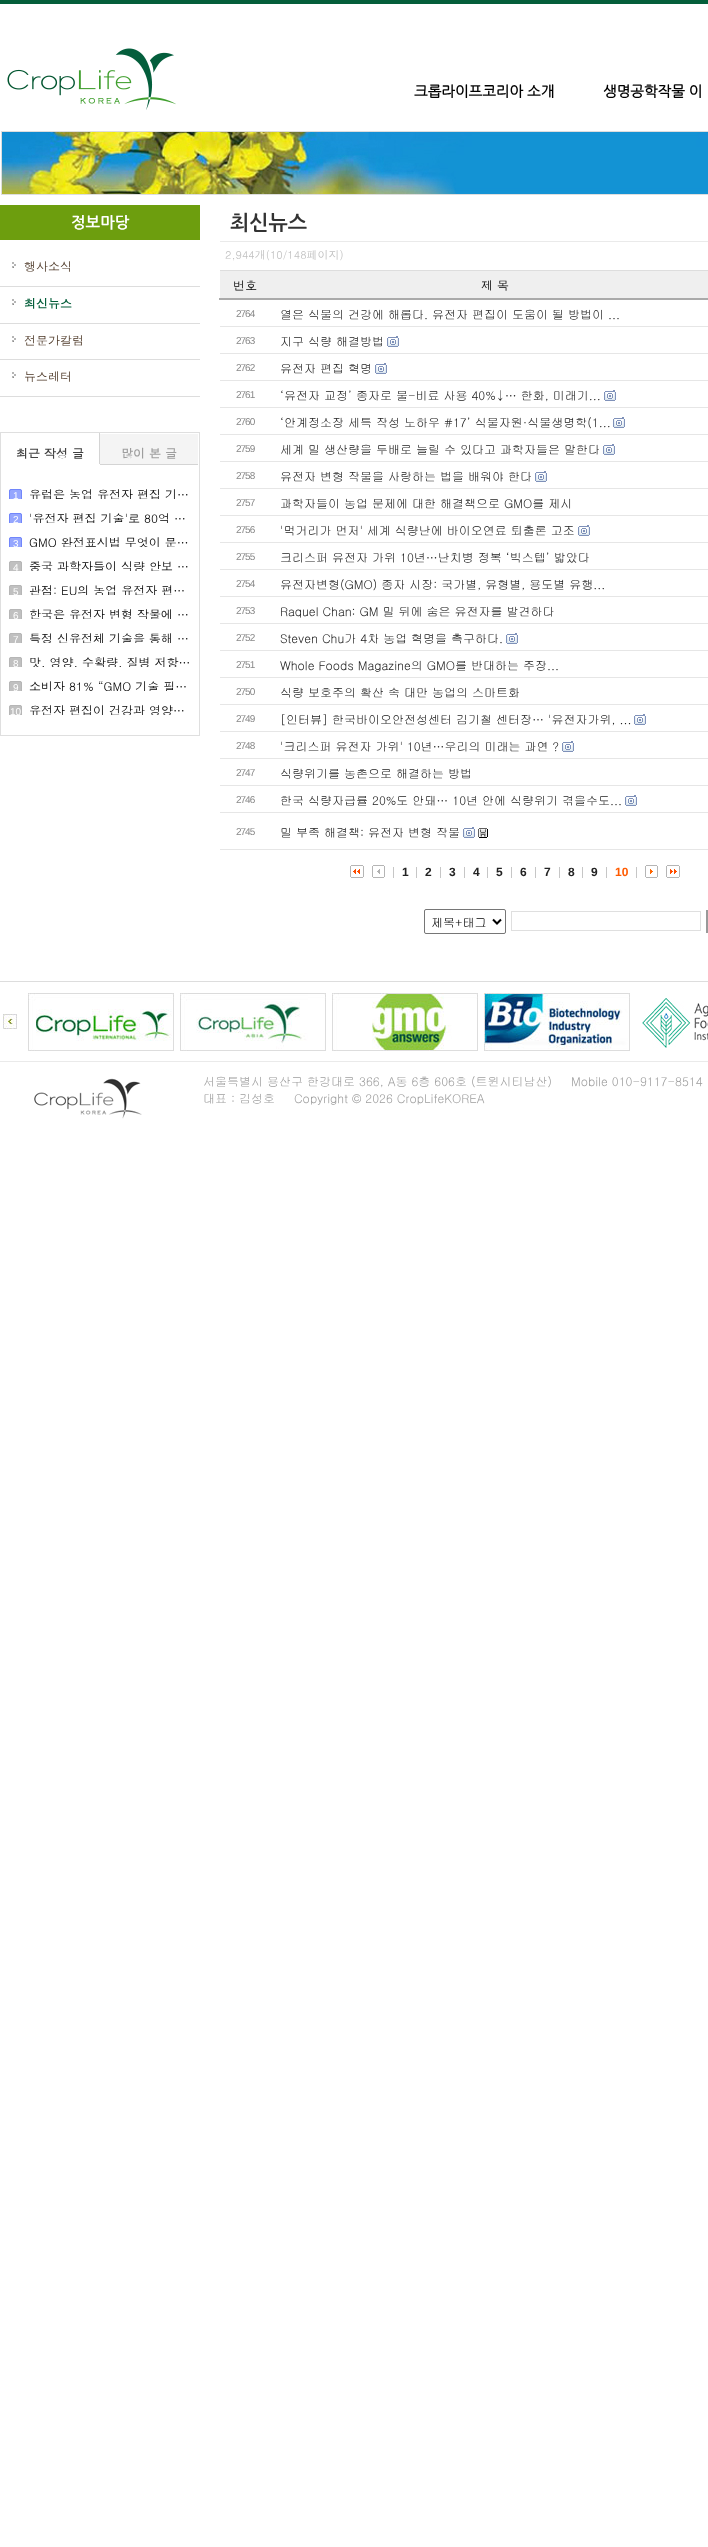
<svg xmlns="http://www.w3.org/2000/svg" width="708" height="2547">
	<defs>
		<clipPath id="clip1"><rect x="9" y="485" width="185" height="14" /></clipPath>
		<clipPath id="clip2"><rect x="9" y="509" width="185" height="14" /></clipPath>
		<clipPath id="clip3"><rect x="9" y="533" width="185" height="14" /></clipPath>
		<clipPath id="clip4"><rect x="9" y="557" width="185" height="14" /></clipPath>
		<clipPath id="clip5"><rect x="9" y="581" width="185" height="14" /></clipPath>
		<clipPath id="clip6"><rect x="9" y="605" width="185" height="14" /></clipPath>
		<clipPath id="clip7"><rect x="9" y="629" width="185" height="14" /></clipPath>
		<clipPath id="clip8"><rect x="9" y="653" width="185" height="14" /></clipPath>
		<clipPath id="clip9"><rect x="9" y="677" width="185" height="14" /></clipPath>
		<clipPath id="clip10"><rect x="9" y="701" width="185" height="14" /></clipPath>
	</defs>
	<rect width="100%" height="100%" fill="#FFFFFF" />
	<rect x="0" y="0" width="708" height="4" fill="#045E3A" />
	<image x="7" y="48" width="169" height="62" href="assets/img1.png" />
	<g font-family="NanumGothic" font-size="14.5" font-weight="700" fill="#000000">
		<text x="414" y="96">크롭라이프코리아 소개</text>
		<text x="603" y="96">생명공학작물 이</text>
	</g>
	<image x="1" y="131" width="707" height="64" href="assets/img2.png" />
	<rect x="0" y="205" width="200" height="35" fill="#6D9E0E" />
	<text x="71" y="228" font-family="'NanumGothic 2'" font-size="15.5" font-weight="700" fill="#FFFFFF">정보마당</text>
	<image x="12" y="262" width="4" height="6" href="assets/img3.png" />
	<rect x="0" y="286" width="200" height="1" fill="#DDDDDD" />
	<text x="24" y="271" font-family="Dotum" font-size="12" fill="#4B3625">행사소식</text>
	<image x="12" y="299" width="4" height="6" href="assets/img3.png" />
	<rect x="0" y="323" width="200" height="1" fill="#DDDDDD" />
	<text x="24" y="308" font-family="Dotum" font-size="12" font-weight="700" fill="#045E3A">최신뉴스</text>
	<image x="12" y="336" width="4" height="6" href="assets/img3.png" />
	<rect x="0" y="359" width="200" height="1" fill="#DDDDDD" />
	<text x="24" y="345" font-family="Dotum" font-size="12" fill="#4B3625">전문가칼럼</text>
	<image x="12" y="372" width="4" height="6" href="assets/img3.png" />
	<rect x="0" y="396" width="200" height="1" fill="#DDDDDD" />
	<text x="24" y="381" font-family="Dotum" font-size="12" fill="#4B3625">뉴스레터</text>
	<rect x="0.5" y="432.5" width="199" height="303" fill="none" stroke="#DFDFDF" />
	<rect x="99" y="433" width="1" height="32" fill="#D4D4D4" />
	<rect x="99" y="464" width="1" height="1" fill="#FFFFFF" />
	<text x="16" y="458" font-family="Dotum" font-size="12" font-weight="700" fill="#424242">최근 작성 글</text>
	<rect x="100" y="434" width="98" height="30" fill="#F4F4F4" />
	<rect x="100" y="464" width="98" height="1" fill="#D4D4D4" />
	<text x="121" y="458" font-family="Dotum" font-size="12" font-weight="700" fill="#9E9E9E">많이 본 글</text>
	<path d="M11 489H20C21 489 22 490 22 491V499H9V491C9 490 10 489 11 489Z" fill="#95A6FE" />
	<g clip-path="url(#clip1)">
		<rect x="9.5" y="489.5" width="12" height="12" rx="1.5" fill="none" stroke="#7186FB" />
	</g>
	<text x="13" y="499" font-family="Liberation Sans" font-size="10" fill="#FFFFFF">1</text>
	<g clip-path="url(#clip1)">
		<text x="29" y="499" font-family="Dotum" font-size="12" fill="#000000">유럽은 농업 유전자 편집 기…</text>
	</g>
	<path d="M11 513H20C21 513 22 514 22 515V523H9V515C9 514 10 513 11 513Z" fill="#95A6FE" />
	<g clip-path="url(#clip2)">
		<rect x="9.5" y="513.5" width="12" height="12" rx="1.5" fill="none" stroke="#7186FB" />
	</g>
	<text x="13" y="523" font-family="Liberation Sans" font-size="10" fill="#FFFFFF">2</text>
	<g clip-path="url(#clip2)">
		<text x="29" y="523" font-family="Dotum" font-size="12" fill="#000000">'유전자 편집 기술'로 80억 …</text>
	</g>
	<path d="M11 537H20C21 537 22 538 22 539V547H9V539C9 538 10 537 11 537Z" fill="#95A6FE" />
	<g clip-path="url(#clip3)">
		<rect x="9.5" y="537.5" width="12" height="12" rx="1.5" fill="none" stroke="#7186FB" />
	</g>
	<text x="13" y="547" font-family="Liberation Sans" font-size="10" fill="#FFFFFF">3</text>
	<g clip-path="url(#clip3)">
		<text x="29" y="547" font-family="Dotum" font-size="12" fill="#000000">GMO 완전표시법 무엇이 문…</text>
	</g>
	<path d="M11 561H20C21 561 22 562 22 563V571H9V563C9 562 10 561 11 561Z" fill="#C0C0C0" />
	<g clip-path="url(#clip4)">
		<rect x="9.5" y="561.5" width="12" height="12" rx="1.5" fill="none" stroke="#B6B6B6" />
	</g>
	<text x="13" y="571" font-family="Liberation Sans" font-size="10" fill="#FFFFFF">4</text>
	<g clip-path="url(#clip4)">
		<text x="29" y="571" font-family="Dotum" font-size="12" fill="#000000">중국 과학자들이 식량 안보 …</text>
	</g>
	<path d="M11 585H20C21 585 22 586 22 587V595H9V587C9 586 10 585 11 585Z" fill="#C0C0C0" />
	<g clip-path="url(#clip5)">
		<rect x="9.5" y="585.5" width="12" height="12" rx="1.5" fill="none" stroke="#B6B6B6" />
	</g>
	<text x="13" y="595" font-family="Liberation Sans" font-size="10" fill="#FFFFFF">5</text>
	<g clip-path="url(#clip5)">
		<text x="29" y="595" font-family="Dotum" font-size="12" fill="#000000">관점: EU의 농업 유전자 편…</text>
	</g>
	<path d="M11 609H20C21 609 22 610 22 611V619H9V611C9 610 10 609 11 609Z" fill="#C0C0C0" />
	<g clip-path="url(#clip6)">
		<rect x="9.5" y="609.5" width="12" height="12" rx="1.5" fill="none" stroke="#B6B6B6" />
	</g>
	<text x="13" y="619" font-family="Liberation Sans" font-size="10" fill="#FFFFFF">6</text>
	<g clip-path="url(#clip6)">
		<text x="29" y="619" font-family="Dotum" font-size="12" fill="#000000">한국은 유전자 변형 작물에 …</text>
	</g>
	<path d="M11 633H20C21 633 22 634 22 635V643H9V635C9 634 10 633 11 633Z" fill="#C0C0C0" />
	<g clip-path="url(#clip7)">
		<rect x="9.5" y="633.5" width="12" height="12" rx="1.5" fill="none" stroke="#B6B6B6" />
	</g>
	<text x="13" y="643" font-family="Liberation Sans" font-size="10" fill="#FFFFFF">7</text>
	<g clip-path="url(#clip7)">
		<text x="29" y="643" font-family="Dotum" font-size="12" fill="#000000">특정 신유전체 기술을 통해 …</text>
	</g>
	<path d="M11 657H20C21 657 22 658 22 659V667H9V659C9 658 10 657 11 657Z" fill="#C0C0C0" />
	<g clip-path="url(#clip8)">
		<rect x="9.5" y="657.5" width="12" height="12" rx="1.5" fill="none" stroke="#B6B6B6" />
	</g>
	<text x="13" y="667" font-family="Liberation Sans" font-size="10" fill="#FFFFFF">8</text>
	<g clip-path="url(#clip8)">
		<text x="29" y="667" font-family="Dotum" font-size="12" fill="#000000">맛, 영양, 수확량, 질병 저항…</text>
	</g>
	<path d="M11 681H20C21 681 22 682 22 683V691H9V683C9 682 10 681 11 681Z" fill="#C0C0C0" />
	<g clip-path="url(#clip9)">
		<rect x="9.5" y="681.5" width="12" height="12" rx="1.5" fill="none" stroke="#B6B6B6" />
	</g>
	<text x="13" y="691" font-family="Liberation Sans" font-size="10" fill="#FFFFFF">9</text>
	<g clip-path="url(#clip9)">
		<text x="29" y="691" font-family="Dotum" font-size="12" fill="#000000">소비자 81% “GMO 기술 필…</text>
	</g>
	<path d="M11 705H20C21 705 22 706 22 707V715H9V707C9 706 10 705 11 705Z" fill="#C0C0C0" />
	<g clip-path="url(#clip10)">
		<rect x="9.5" y="705.5" width="12" height="12" rx="1.5" fill="none" stroke="#B6B6B6" />
	</g>
	<text x="10" y="715" font-family="Liberation Sans" font-size="10" fill="#FFFFFF">10</text>
	<g clip-path="url(#clip10)">
		<text x="29" y="715" font-family="Dotum" font-size="12" fill="#000000">유전자 편집이 건강과 영양…</text>
	</g>
	<rect x="220" y="241" width="488" height="1" fill="#EAEAEA" />
	<text x="230" y="230" font-family="'NanumGothic 2'" font-size="20.5" font-weight="700" fill="#333333">최신뉴스</text>
	<text x="225" y="259" font-family="Dotum" font-size="11" fill="#C0C0C0">2,944개(10/148페이지)</text>
	<rect x="220" y="271" width="488" height="27" fill="#EFEFEF" />
	<text x="233" y="290" font-family="Dotum" font-size="12" fill="#000000">번호</text>
	<rect x="220" y="270" width="488" height="1" fill="#DDDDDD" />
	<rect x="219" y="298" width="489" height="2" fill="#AAAAAA" />
	<text x="481" y="290" font-family="Dotum" font-size="12" fill="#000000">제 목</text>
	<text x="236" y="317" font-family="Liberation Sans" font-size="10" letter-spacing="-1" fill="#888888">2764</text>
	<rect x="220" y="326" width="488" height="1" fill="#E6E6E6" />
	<text x="280" y="319" font-family="Gulim" font-size="12" fill="#222222">열은 식물의 건강에 해롭다. 유전자 편집이 도움이 될 방법이 ...</text>
	<text x="236" y="344" font-family="Liberation Sans" font-size="10" letter-spacing="-1" fill="#888888">2763</text>
	<rect x="220" y="353" width="488" height="1" fill="#E6E6E6" />
	<text x="280" y="346" font-family="Gulim" font-size="12" fill="#222222">지구 식량 해결방법</text>
	<image x="387" y="336" width="12" height="11" href="assets/img4.png" />
	<text x="236" y="371" font-family="Liberation Sans" font-size="10" letter-spacing="-1" fill="#888888">2762</text>
	<rect x="220" y="380" width="488" height="1" fill="#E6E6E6" />
	<text x="280" y="373" font-family="Gulim" font-size="12" fill="#222222">유전자 편집 혁명</text>
	<image x="375" y="363" width="12" height="11" href="assets/img4.png" />
	<text x="236" y="398" font-family="Liberation Sans" font-size="10" letter-spacing="-1" fill="#888888">2761</text>
	<rect x="220" y="407" width="488" height="1" fill="#E6E6E6" />
	<text x="280" y="400" font-family="Gulim" font-size="12" fill="#222222">‘유전자 교정’ 종자로 물-비료 사용 40%↓… 한화, 미래기...</text>
	<image x="604" y="390" width="12" height="11" href="assets/img4.png" />
	<text x="236" y="425" font-family="Liberation Sans" font-size="10" letter-spacing="-1" fill="#888888">2760</text>
	<rect x="220" y="434" width="488" height="1" fill="#E6E6E6" />
	<text x="280" y="427" font-family="Gulim" font-size="12" fill="#222222">‘안계정소장 세특 작성 노하우 #17’ 식물자원·식물생명학(1...</text>
	<image x="613" y="417" width="12" height="11" href="assets/img4.png" />
	<text x="236" y="452" font-family="Liberation Sans" font-size="10" letter-spacing="-1" fill="#888888">2759</text>
	<rect x="220" y="461" width="488" height="1" fill="#E6E6E6" />
	<text x="280" y="454" font-family="Gulim" font-size="12" fill="#222222">세계 밀 생산량을 두배로 늘릴 수 있다고 과학자들은 말한다</text>
	<image x="603" y="444" width="12" height="11" href="assets/img4.png" />
	<text x="236" y="479" font-family="Liberation Sans" font-size="10" letter-spacing="-1" fill="#888888">2758</text>
	<rect x="220" y="488" width="488" height="1" fill="#E6E6E6" />
	<text x="280" y="481" font-family="Gulim" font-size="12" fill="#222222">유전자 변형 작물을 사랑하는 법을 배워야 한다</text>
	<image x="535" y="471" width="12" height="11" href="assets/img4.png" />
	<text x="236" y="506" font-family="Liberation Sans" font-size="10" letter-spacing="-1" fill="#888888">2757</text>
	<rect x="220" y="515" width="488" height="1" fill="#E6E6E6" />
	<text x="280" y="508" font-family="Gulim" font-size="12" fill="#222222">과학자들이 농업 문제에 대한 해결책으로 GMO를 제시</text>
	<text x="236" y="533" font-family="Liberation Sans" font-size="10" letter-spacing="-1" fill="#888888">2756</text>
	<rect x="220" y="542" width="488" height="1" fill="#E6E6E6" />
	<text x="280" y="535" font-family="Gulim" font-size="12" fill="#222222">'먹거리가 먼저' 세계 식량난에 바이오연료 퇴출론 고조</text>
	<image x="578" y="525" width="12" height="11" href="assets/img4.png" />
	<text x="236" y="560" font-family="Liberation Sans" font-size="10" letter-spacing="-1" fill="#888888">2755</text>
	<rect x="220" y="569" width="488" height="1" fill="#E6E6E6" />
	<text x="280" y="562" font-family="Gulim" font-size="12" fill="#222222">크리스퍼 유전자 가위 10년…난치병 정복 ‘빅스텝’ 밟았다</text>
	<text x="236" y="587" font-family="Liberation Sans" font-size="10" letter-spacing="-1" fill="#888888">2754</text>
	<rect x="220" y="596" width="488" height="1" fill="#E6E6E6" />
	<text x="280" y="589" font-family="Gulim" font-size="12" fill="#222222">유전자변형(GMO) 종자 시장: 국가별, 유형별, 용도별 유행...</text>
	<text x="236" y="614" font-family="Liberation Sans" font-size="10" letter-spacing="-1" fill="#888888">2753</text>
	<rect x="220" y="623" width="488" height="1" fill="#E6E6E6" />
	<text x="280" y="616" font-family="Gulim" font-size="12" fill="#222222">Raquel Chan: GM 밀 뒤에 숨은 유전자를 발견하다</text>
	<text x="236" y="641" font-family="Liberation Sans" font-size="10" letter-spacing="-1" fill="#888888">2752</text>
	<rect x="220" y="650" width="488" height="1" fill="#E6E6E6" />
	<text x="280" y="643" font-family="Gulim" font-size="12" fill="#222222">Steven Chu가 4차 농업 혁명을 촉구하다.</text>
	<image x="506" y="633" width="12" height="11" href="assets/img4.png" />
	<text x="236" y="668" font-family="Liberation Sans" font-size="10" letter-spacing="-1" fill="#888888">2751</text>
	<rect x="220" y="677" width="488" height="1" fill="#E6E6E6" />
	<text x="280" y="670" font-family="Gulim" font-size="12" fill="#222222">Whole Foods Magazine의 GMO를 반대하는 주장...</text>
	<text x="236" y="695" font-family="Liberation Sans" font-size="10" letter-spacing="-1" fill="#888888">2750</text>
	<rect x="220" y="704" width="488" height="1" fill="#E6E6E6" />
	<text x="280" y="697" font-family="Gulim" font-size="12" fill="#222222">식량 보호주의 확산 속 대만 농업의 스마트화</text>
	<text x="236" y="722" font-family="Liberation Sans" font-size="10" letter-spacing="-1" fill="#888888">2749</text>
	<rect x="220" y="731" width="488" height="1" fill="#E6E6E6" />
	<text x="280" y="724" font-family="Gulim" font-size="12" fill="#222222">[인터뷰] 한국바이오안전성센터 김기철 센터장… '유전자가위, ...</text>
	<image x="634" y="714" width="12" height="11" href="assets/img4.png" />
	<text x="236" y="749" font-family="Liberation Sans" font-size="10" letter-spacing="-1" fill="#888888">2748</text>
	<rect x="220" y="758" width="488" height="1" fill="#E6E6E6" />
	<text x="280" y="751" font-family="Gulim" font-size="12" fill="#222222">'크리스퍼 유전자 가위' 10년…우리의 미래는 과연 ?</text>
	<image x="562" y="741" width="12" height="11" href="assets/img4.png" />
	<text x="236" y="776" font-family="Liberation Sans" font-size="10" letter-spacing="-1" fill="#888888">2747</text>
	<rect x="220" y="785" width="488" height="1" fill="#E6E6E6" />
	<text x="280" y="778" font-family="Gulim" font-size="12" fill="#222222">식량위기를 농촌으로 해결하는 방법</text>
	<text x="236" y="803" font-family="Liberation Sans" font-size="10" letter-spacing="-1" fill="#888888">2746</text>
	<rect x="220" y="812" width="488" height="1" fill="#E6E6E6" />
	<text x="280" y="805" font-family="Gulim" font-size="12" fill="#222222">한국 식량자급률 20%도 안돼… 10년 안에 식량위기 겪을수도...</text>
	<image x="625" y="795" width="12" height="11" href="assets/img4.png" />
	<text x="236" y="835" font-family="Liberation Sans" font-size="10" letter-spacing="-1" fill="#888888">2745</text>
	<rect x="220" y="849" width="488" height="1" fill="#E6E6E6" />
	<text x="280" y="837" font-family="Gulim" font-size="12" fill="#222222">밀 부족 해결책: 유전자 변형 작물</text>
	<image x="463" y="827" width="12" height="11" href="assets/img4.png" />
	<image x="478" y="828" width="10" height="10" href="assets/img5.png" />
	<image x="350" y="865" width="14" height="13" href="assets/img6.png" />
	<image x="372" y="865" width="13" height="13" href="assets/img7.png" />
	<rect x="393" y="867" width="1" height="11" fill="#C6C6C6" />
	<text x="402" y="876" font-family="Liberation Sans" font-size="12" font-weight="700" fill="#222222">1</text>
	<rect x="416" y="867" width="1" height="11" fill="#C6C6C6" />
	<text x="425" y="876" font-family="Liberation Sans" font-size="12" font-weight="700" fill="#222222">2</text>
	<rect x="440" y="867" width="1" height="11" fill="#C6C6C6" />
	<text x="449" y="876" font-family="Liberation Sans" font-size="12" font-weight="700" fill="#222222">3</text>
	<rect x="464" y="867" width="1" height="11" fill="#C6C6C6" />
	<text x="473" y="876" font-family="Liberation Sans" font-size="12" font-weight="700" fill="#222222">4</text>
	<rect x="487" y="867" width="1" height="11" fill="#C6C6C6" />
	<text x="496" y="876" font-family="Liberation Sans" font-size="12" font-weight="700" fill="#222222">5</text>
	<rect x="511" y="867" width="1" height="11" fill="#C6C6C6" />
	<text x="520" y="876" font-family="Liberation Sans" font-size="12" font-weight="700" fill="#222222">6</text>
	<rect x="535" y="867" width="1" height="11" fill="#C6C6C6" />
	<text x="544" y="876" font-family="Liberation Sans" font-size="12" font-weight="700" fill="#222222">7</text>
	<rect x="559" y="867" width="1" height="11" fill="#C6C6C6" />
	<text x="568" y="876" font-family="Liberation Sans" font-size="12" font-weight="700" fill="#222222">8</text>
	<rect x="582" y="867" width="1" height="11" fill="#C6C6C6" />
	<text x="591" y="876" font-family="Liberation Sans" font-size="12" font-weight="700" fill="#222222">9</text>
	<rect x="606" y="867" width="1" height="11" fill="#C6C6C6" />
	<text x="615" y="876" font-family="Liberation Sans" font-size="12" font-weight="700" fill="#FF5B01">10</text>
	<rect x="636" y="867" width="1" height="11" fill="#C6C6C6" />
	<image x="645" y="865" width="13" height="13" href="assets/img8.png" />
	<image x="666" y="865" width="14" height="13" href="assets/img9.png" />
	<rect x="424.5" y="909.5" width="81" height="24" rx="1.5" fill="none" stroke="#767676" />
	<path d="M493 919.5L497 923.5L501 919.5" fill="none" stroke="#000000" stroke-width="2" />
	<text x="431" y="927" font-family="Gulim" font-size="12" fill="#000000">제목+태그</text>
	<rect x="511.5" y="911.5" width="189" height="19" fill="none" stroke="#DFDFDF" />
	<rect x="706" y="910" width="2" height="23" fill="#999999" />
	<rect x="0" y="981" width="708" height="1" fill="#DDDDDD" />
	<image x="3" y="1014" width="14" height="15" href="assets/img10.png" />
	<image x="28" y="993" width="146" height="58" href="assets/img11.png" />
	<image x="180" y="993" width="146" height="58" href="assets/img12.png" />
	<image x="332" y="993" width="146" height="58" href="assets/img13.png" />
	<image x="484" y="993" width="146" height="58" href="assets/img14.png" />
	<image x="642" y="998" width="66" height="50" href="assets/img15.png" />
	<rect x="0" y="1061" width="708" height="1" fill="#EAEAEA" />
	<image x="34" y="1078" width="108" height="41" href="assets/img16.png" />
	<g font-family="Gulim" font-size="12" fill="#9E9E9E">
		<text x="203" y="1086">서울특별시 용산구 한강대로 366, A동 6층 606호 (트윈시티남산)</text>
		<text x="571" y="1086">Mobile 010-9117-8514</text>
		<text x="203" y="1103">대표 : 김성호</text>
		<text x="294" y="1103">Copyright © 2026 CropLifeKOREA</text>
	</g>
</svg>
